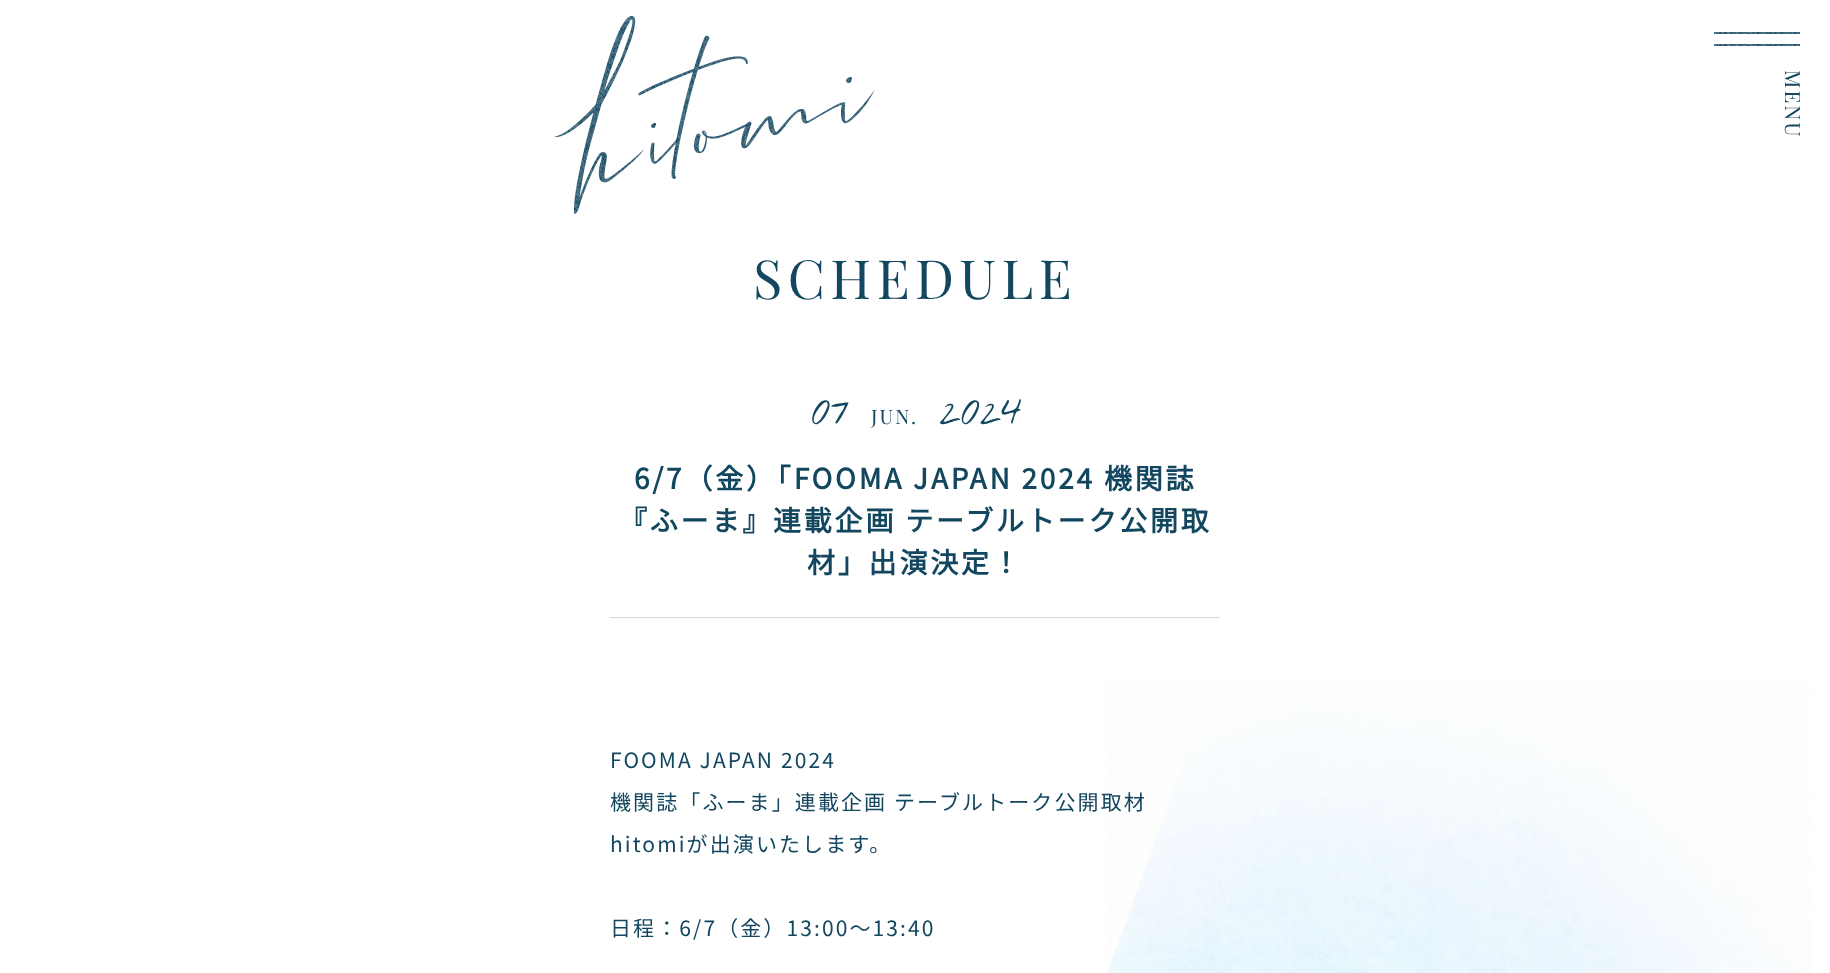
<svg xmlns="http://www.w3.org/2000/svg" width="1830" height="973">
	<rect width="100%" height="100%" fill="#FFFFFF" />
	<image x="1107" y="680" width="704" height="293" href="assets/img1.png" />
	<image x="554" y="16" width="321" height="198" href="assets/img2.png" />
	<image x="1714" y="32" width="86" height="2" href="assets/img3.png" />
	<image x="1714" y="44" width="86" height="2" href="assets/img3.png" />
	<text x="1785" y="70" transform="rotate(90 1785 70)" font-family="Playfair Display" font-size="21" letter-spacing="2.1" fill="#13465F">MENU</text>
	<text x="753" y="299" font-family="Playfair Display" font-size="54" letter-spacing="5.5" fill="#13465F">SCHEDULE</text>
	<rect x="610" y="617" width="610" height="1" fill="#D0DADF" />
	<text x="811" y="424" font-family="Nothing You Could Do" font-size="40" font-weight="100" fill="#13465F">07</text>
	<text x="871" y="424" font-family="Playfair Display" font-size="20" letter-spacing="2" fill="#13465F">JUN.</text>
	<text x="939" y="424" font-family="Nothing You Could Do" font-size="40" font-weight="100" fill="#13465F">2024</text>
	<g font-family="Noto Sans JP" font-size="28" font-weight="700" letter-spacing="2.8" fill="#13465F">
		<text x="634" y="489">6/7（金）「FOOMA JAPAN 2024 機関誌</text>
		<text x="619" y="531">『ふーま』連載企画 テーブルトーク公開取</text>
		<text x="807" y="573">材」出演決定！</text>
	</g>
	<g font-family="Noto Sans JP" font-size="21" font-weight="100" letter-spacing="2.1" fill="#13465F">
		<text x="610" y="768">FOOMA JAPAN 2024</text>
		<text x="610" y="810">機関誌「ふーま」連載企画 テーブルトーク公開取材</text>
		<text x="610" y="852">hitomiが出演いたします。</text>
		<text x="610" y="936">日程：6/7（金）13:00～13:40</text>
	</g>
</svg>
